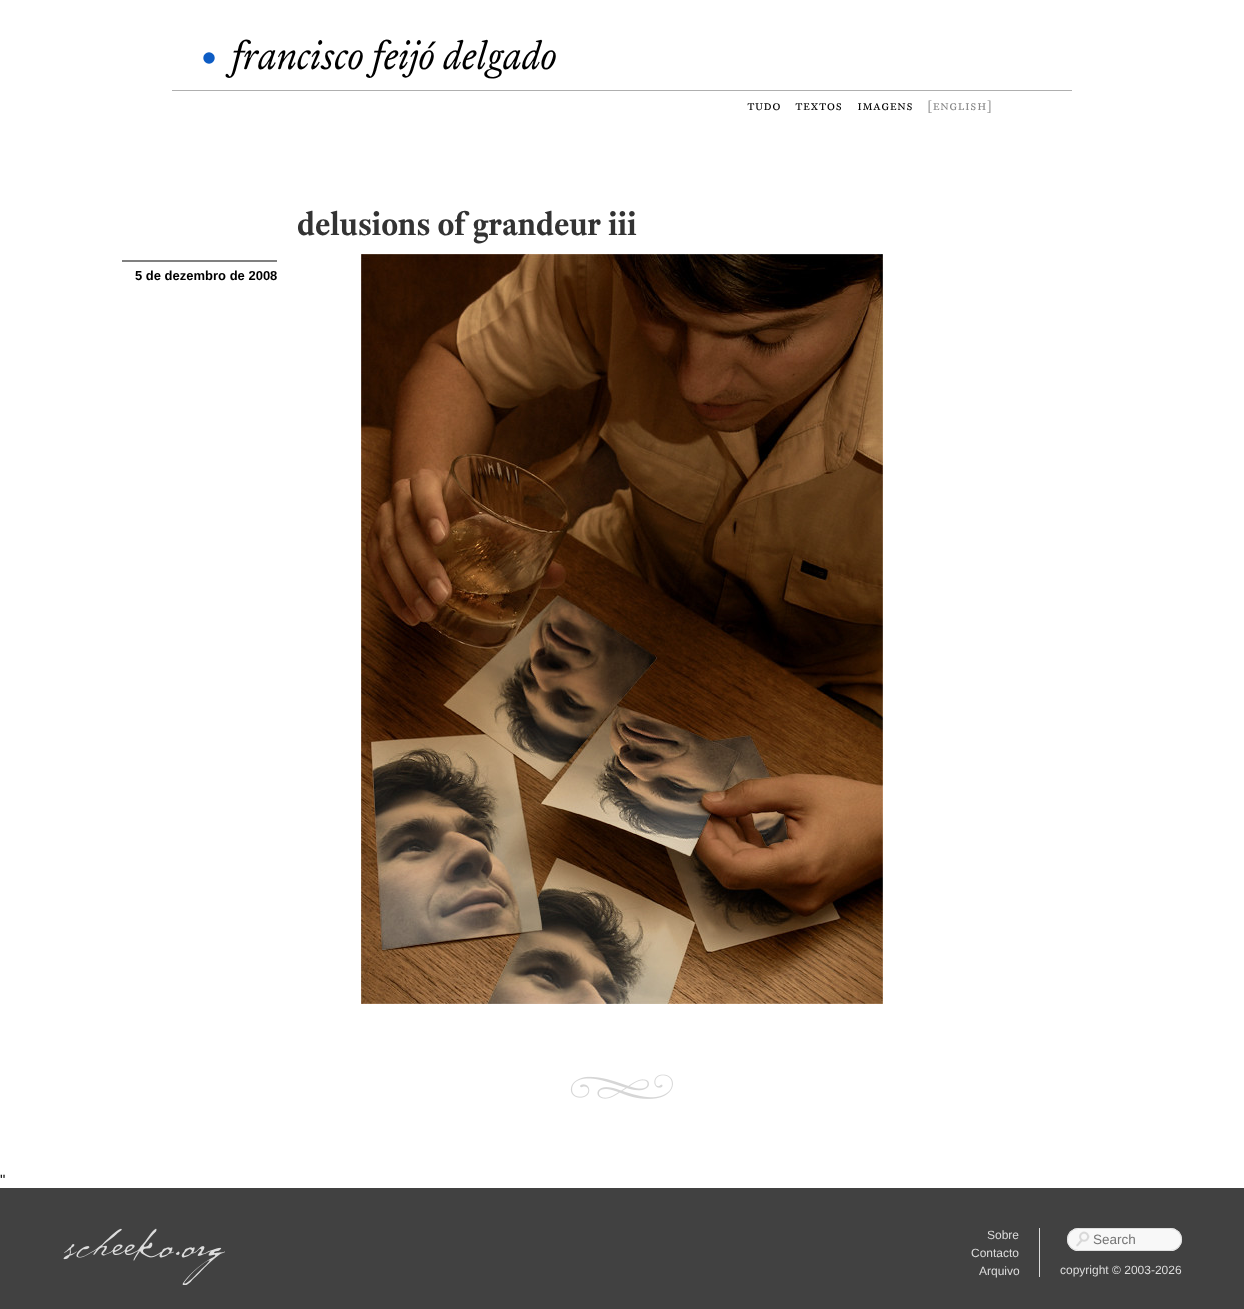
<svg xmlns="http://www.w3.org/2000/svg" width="1244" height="1309">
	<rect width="100%" height="100%" fill="#FFFFFF" />
	<rect x="172" y="90" width="900" height="1" fill="#AFAFAF" />
	<text x="197" y="69" font-family="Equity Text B" font-size="42" fill="#0D5CC4">•</text>
	<text x="231" y="69" font-family="Equity Text B" font-size="40" font-style="italic" fill="#000000">francisco feijó delgado</text>
	<g font-family="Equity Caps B" font-size="13" fill="#000000">
		<text x="747" y="110">tudo</text>
		<text x="795" y="110">textos</text>
		<text x="857" y="110">imagens</text>
	</g>
	<text x="927" y="110" font-family="Equity Caps B" font-size="13" fill="#888888">[english]</text>
	<text x="297" y="235" font-family="Equity Text B" font-size="33" font-weight="700" fill="#333333">delusions of grandeur iii</text>
	<rect x="122" y="260" width="155" height="2" fill="#808080" />
	<text x="135" y="280" font-family="Liberation Sans" font-size="13" font-weight="700" fill="#000000">5 de dezembro de 2008</text>
	<image x="361" y="254" width="522" height="750" href="assets/img1.png" />
	<image x="570" y="1074" width="103" height="25" href="assets/img2.png" />
	<text x="0" y="1185" font-family="Liberation Sans" font-size="15" fill="#000000">"</text>
	<rect x="0" y="1188" width="1244" height="121" fill="#414141" />
	<image x="63" y="1228" width="162" height="57" href="assets/img3.png" />
	<g font-family="Liberation Sans" font-size="12" fill="#DCDCDC">
		<text x="987" y="1239">Sobre</text>
		<text x="971" y="1257">Contacto</text>
		<text x="979" y="1275">Arquivo</text>
	</g>
	<rect x="1039" y="1228" width="1" height="49" fill="#DCDCDC" />
	<rect x="1067" y="1228" width="115" height="23" rx="11.5" fill="#F8F8F8" />
	<image x="1076" y="1231" width="14" height="16" href="assets/img4.png" />
	<rect x="1067.5" y="1228.5" width="114" height="22" rx="11" fill="none" stroke="#DDDDDD" />
	<text x="1093" y="1244" font-family="Liberation Sans" font-size="13.5" fill="#757575">Search</text>
	<text x="1060" y="1274" font-family="Liberation Sans" font-size="12" fill="#DCDCDC">copyright © 2003-2026</text>
</svg>
